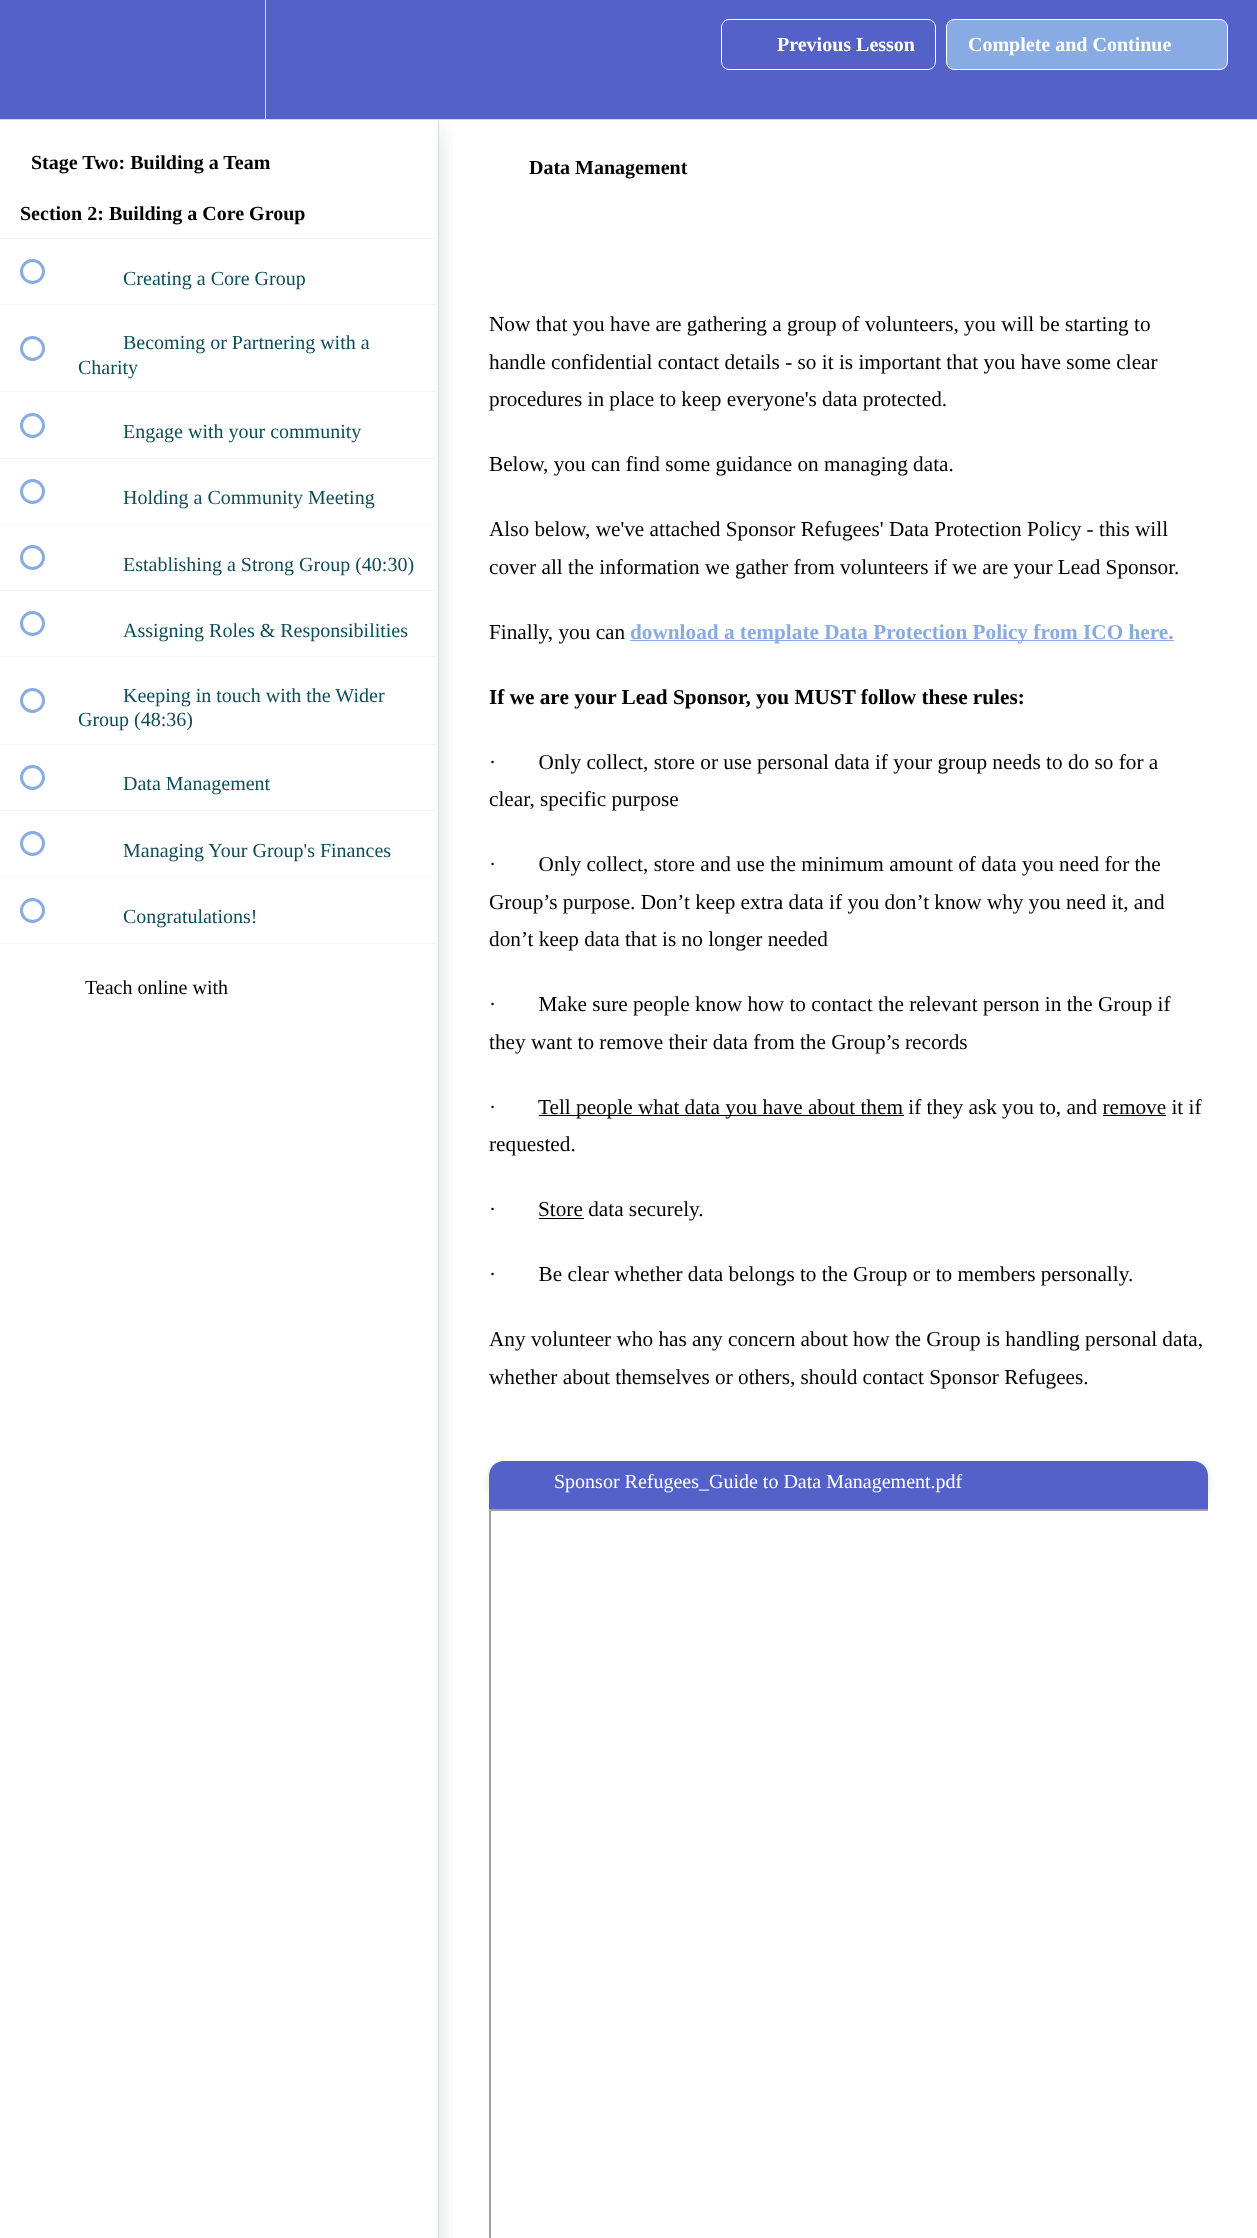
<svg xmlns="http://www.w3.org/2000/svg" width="1257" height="2238">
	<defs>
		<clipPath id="clip1"><rect x="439" y="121" width="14" height="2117" /></clipPath>
	</defs>
	<rect width="100%" height="100%" fill="#FFFFFF" />
	<g clip-path="url(#clip1)">
		<rect x="0" y="128" width="439" height="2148" fill="#20272D" fill-opacity="0.15" filter="blur(12.5px)" />
	</g>
	<rect x="0" y="0" width="1257" height="119" fill="#5461C8" />
	<rect x="0" y="119" width="1257" height="1" fill="#D7DADB" />
	<rect x="265" y="0" width="1" height="119" fill="#D7DADB" />
	<rect x="721.5" y="19.5" width="214" height="50" rx="7.5" fill="none" stroke="#FFFFFF" />
	<text x="777" y="51" font-family="Liberation Serif" font-size="20" font-weight="700" fill="#FFFFFF">Previous Lesson</text>
	<rect x="946.5" y="19.5" width="281" height="50" rx="7.5" fill="#89ABE3" stroke="#FFFFFF" />
	<text x="968" y="51" font-family="Liberation Serif" font-size="20" font-weight="700" fill="#FFFFFF">Complete and Continue</text>
	<rect x="438" y="120" width="1" height="2118" fill="#D7DADB" />
	<text x="31" y="169" font-family="Liberation Serif" font-size="20" font-weight="700" fill="#000000">Stage Two: Building a Team</text>
	<rect x="0" y="238" width="438" height="1" fill="#F3F7FC" />
	<text x="20" y="220" font-family="Liberation Serif" font-size="20" font-weight="700" fill="#000000">Section 2: Building a Core Group</text>
	<rect x="0" y="304" width="438" height="1" fill="#F3F7FC" />
	<circle cx="32.5" cy="271.5" r="11" fill="none" stroke="#89ABE3" stroke-width="3" />
	<text x="123" y="285" font-family="Liberation Serif" font-size="20" fill="#0E4D59">Creating a Core Group</text>
	<rect x="0" y="391" width="438" height="1" fill="#F3F7FC" />
	<circle cx="32.5" cy="348.5" r="11" fill="none" stroke="#89ABE3" stroke-width="3" />
	<g font-family="Liberation Serif" font-size="20" fill="#0E4D59">
		<text x="123" y="349">Becoming or Partnering with a</text>
		<text x="78" y="374">Charity</text>
	</g>
	<rect x="0" y="458" width="438" height="1" fill="#F3F7FC" />
	<circle cx="32.5" cy="425.5" r="11" fill="none" stroke="#89ABE3" stroke-width="3" />
	<text x="123" y="438" font-family="Liberation Serif" font-size="20" fill="#0E4D59">Engage with your community</text>
	<rect x="0" y="524" width="438" height="1" fill="#F3F7FC" />
	<circle cx="32.5" cy="491.5" r="11" fill="none" stroke="#89ABE3" stroke-width="3" />
	<text x="123" y="504" font-family="Liberation Serif" font-size="20" fill="#0E4D59">Holding a Community Meeting</text>
	<rect x="0" y="590" width="438" height="1" fill="#F3F7FC" />
	<circle cx="32.5" cy="557.5" r="11" fill="none" stroke="#89ABE3" stroke-width="3" />
	<text x="123" y="571" font-family="Liberation Serif" font-size="20" fill="#0E4D59">Establishing a Strong Group (40:30)</text>
	<rect x="0" y="656" width="438" height="1" fill="#F3F7FC" />
	<circle cx="32.5" cy="623.5" r="11" fill="none" stroke="#89ABE3" stroke-width="3" />
	<text x="123" y="637" font-family="Liberation Serif" font-size="20" fill="#0E4D59">Assigning Roles &amp; Responsibilities</text>
	<rect x="0" y="744" width="438" height="1" fill="#F3F7FC" />
	<circle cx="32.5" cy="700.5" r="11" fill="none" stroke="#89ABE3" stroke-width="3" />
	<g font-family="Liberation Serif" font-size="20" fill="#0E4D59">
		<text x="123" y="702">Keeping in touch with the Wider</text>
		<text x="78" y="726">Group (48:36)</text>
	</g>
	<rect x="0" y="810" width="438" height="1" fill="#F3F7FC" />
	<circle cx="32.5" cy="777.5" r="11" fill="none" stroke="#89ABE3" stroke-width="3" />
	<text x="123" y="790" font-family="Liberation Serif" font-size="20" fill="#0E4D59">Data Management</text>
	<rect x="0" y="876" width="438" height="1" fill="#F3F7FC" />
	<circle cx="32.5" cy="843.5" r="11" fill="none" stroke="#89ABE3" stroke-width="3" />
	<text x="123" y="857" font-family="Liberation Serif" font-size="20" fill="#0E4D59">Managing Your Group's Finances</text>
	<rect x="0" y="943" width="438" height="1" fill="#F3F7FC" />
	<circle cx="32.5" cy="910.5" r="11" fill="none" stroke="#89ABE3" stroke-width="3" />
	<text x="123" y="923" font-family="Liberation Serif" font-size="20" fill="#0E4D59">Congratulations!</text>
	<text x="85" y="994" font-family="Liberation Serif" font-size="20" fill="#000000">Teach online with</text>
	<text x="529" y="174" font-family="Liberation Serif" font-size="20" font-weight="700" fill="#000000">Data Management</text>
	<g font-family="Liberation Serif" font-size="21.25" fill="#000000">
		<text x="489" y="331">Now that you have are gathering a group of volunteers, you will be starting to</text>
		<text x="489" y="369">handle confidential contact details - so it is important that you have some clear</text>
		<text x="489" y="406">procedures in place to keep everyone's data protected.</text>
		<text x="489" y="471">Below, you can find some guidance on managing data.</text>
		<text x="489" y="536">Also below, we've attached Sponsor Refugees' Data Protection Policy - this will</text>
		<text x="489" y="574">cover all the information we gather from volunteers if we are your Lead Sponsor.</text>
		<text x="489" y="639">Finally, you can</text>
	</g>
	<rect x="630" y="640" width="544" height="1" fill="#89ABE3" />
	<text x="630" y="639" font-family="Liberation Serif" font-size="21.25" font-weight="700" fill="#89ABE3">download a template Data Protection Policy from ICO here.</text>
	<text x="489" y="704" font-family="Liberation Serif" font-size="21.25" font-weight="700" fill="#000000">If we are your Lead Sponsor, you MUST follow these rules:</text>
	<g font-family="Liberation Serif" font-size="21.25" fill="#000000">
		<text x="489" y="769" xml:space="preserve">·        Only collect, store or use personal data if your group needs to do so for a</text>
		<text x="489" y="806">clear, specific purpose</text>
		<text x="489" y="871" xml:space="preserve">·        Only collect, store and use the minimum amount of data you need for the</text>
		<text x="489" y="909">Group’s purpose. Don’t keep extra data if you don’t know why you need it, and</text>
		<text x="489" y="946">don’t keep data that is no longer needed</text>
		<text x="489" y="1011" xml:space="preserve">·        Make sure people know how to contact the relevant person in the Group if</text>
		<text x="489" y="1049">they want to remove their data from the Group’s records</text>
		<text x="489" y="1114">·</text>
	</g>
	<rect x="539" y="1115" width="365" height="1" fill="#000000" />
	<text x="538" y="1114" font-family="Liberation Serif" font-size="21.25" fill="#000000">Tell people what data you have about them if they ask you to, and remove it if</text>
	<rect x="1103" y="1115" width="63" height="1" fill="#000000" />
	<g font-family="Liberation Serif" font-size="21.25" fill="#000000">
		<text x="489" y="1151">requested.</text>
		<text x="489" y="1216">·</text>
	</g>
	<rect x="539" y="1218" width="45" height="1" fill="#000000" />
	<g font-family="Liberation Serif" font-size="21.25" fill="#000000">
		<text x="538" y="1216">Store data securely.</text>
		<text x="489" y="1281" xml:space="preserve">·        Be clear whether data belongs to the Group or to members personally.</text>
		<text x="489" y="1346">Any volunteer who has any concern about how the Group is handling personal data,</text>
		<text x="489" y="1384">whether about themselves or others, should contact Sponsor Refugees.</text>
	</g>
	<rect x="489" y="1464" width="719" height="40" rx="15" fill="#000000" fill-opacity="0.1" filter="blur(4px)" />
	<path d="M504 1461H1193C1201.5 1461 1208 1467.5 1208 1476V1501H489V1476C489 1467.5 495.5 1461 504 1461Z" fill="#5461C8" />
	<text x="554" y="1488" font-family="Liberation Serif" font-size="20" fill="#FFFFFF">Sponsor Refugees_Guide to Data Management.pdf</text>
	<rect x="489" y="1501" width="719" height="8" fill="#5461C8" />
	<path d="M489 1509H1208V1511H491Z" fill="#9F9F9F" />
	<path d="M489 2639V1509L491 1511V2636Z" fill="#9F9F9F" />
</svg>
